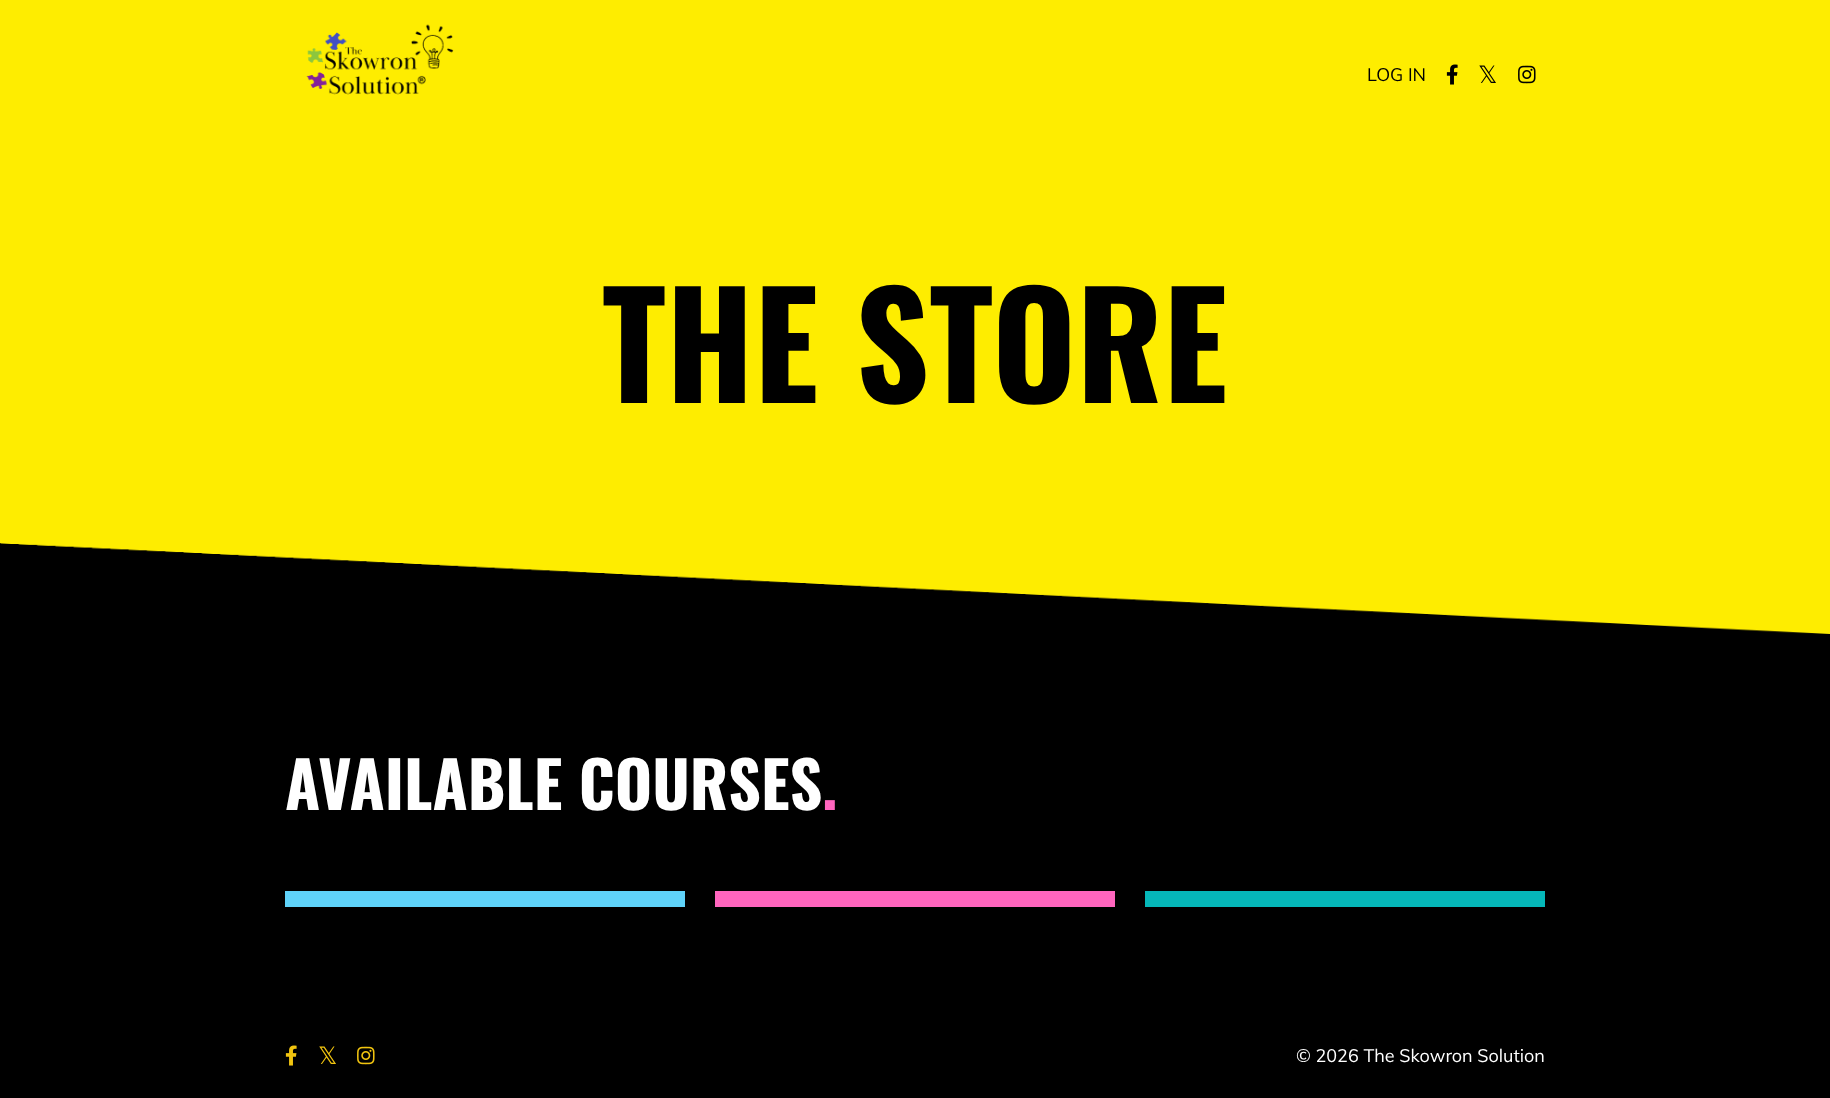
<svg xmlns="http://www.w3.org/2000/svg" width="1830" height="1098">
	<rect width="100%" height="100%" fill="#FEED00" />
	<image x="306" y="24" width="148" height="71" href="assets/img1.png" />
	<text x="1367" y="81" font-family="Muli" font-size="18" fill="#000000">LOG IN</text>
	<image x="1446" y="64" width="12" height="21" href="assets/img2.png" />
	<text x="1478" y="83" font-family="DejaVu Sans" font-size="24" fill="#000000">𝕏</text>
	<image x="1518" y="65" width="18" height="19" href="assets/img3.png" />
	<text x="602" y="403" font-family="Oswald" font-size="144" font-weight="700" fill="#000000">THE STORE</text>
	<image x="0" y="543" width="1830" height="91" href="assets/img4.png" />
	<rect x="0" y="634" width="1830" height="464" fill="#000000" />
	<text x="285" y="810" font-family="Oswald" font-size="64" font-weight="700" fill="#FFFFFF">AVAILABLE COURSES</text>
	<text x="822" y="810" font-family="Oswald" font-size="64" font-weight="700" fill="#FF65BE">.</text>
	<rect x="285" y="891" width="400" height="16" fill="#5FD3FA" />
	<rect x="715" y="891" width="400" height="16" fill="#FF65BE" />
	<rect x="1145" y="891" width="400" height="16" fill="#05B7B9" />
	<image x="285" y="1045" width="12" height="21" href="assets/img5.png" />
	<text x="318" y="1064" font-family="DejaVu Sans" font-size="24" fill="#F1C40F">𝕏</text>
	<image x="357" y="1046" width="18" height="19" href="assets/img6.png" />
	<text x="1296" y="1062" font-family="Muli" font-size="18" fill="#FFFFFF">© 2026 The Skowron Solution</text>
</svg>
